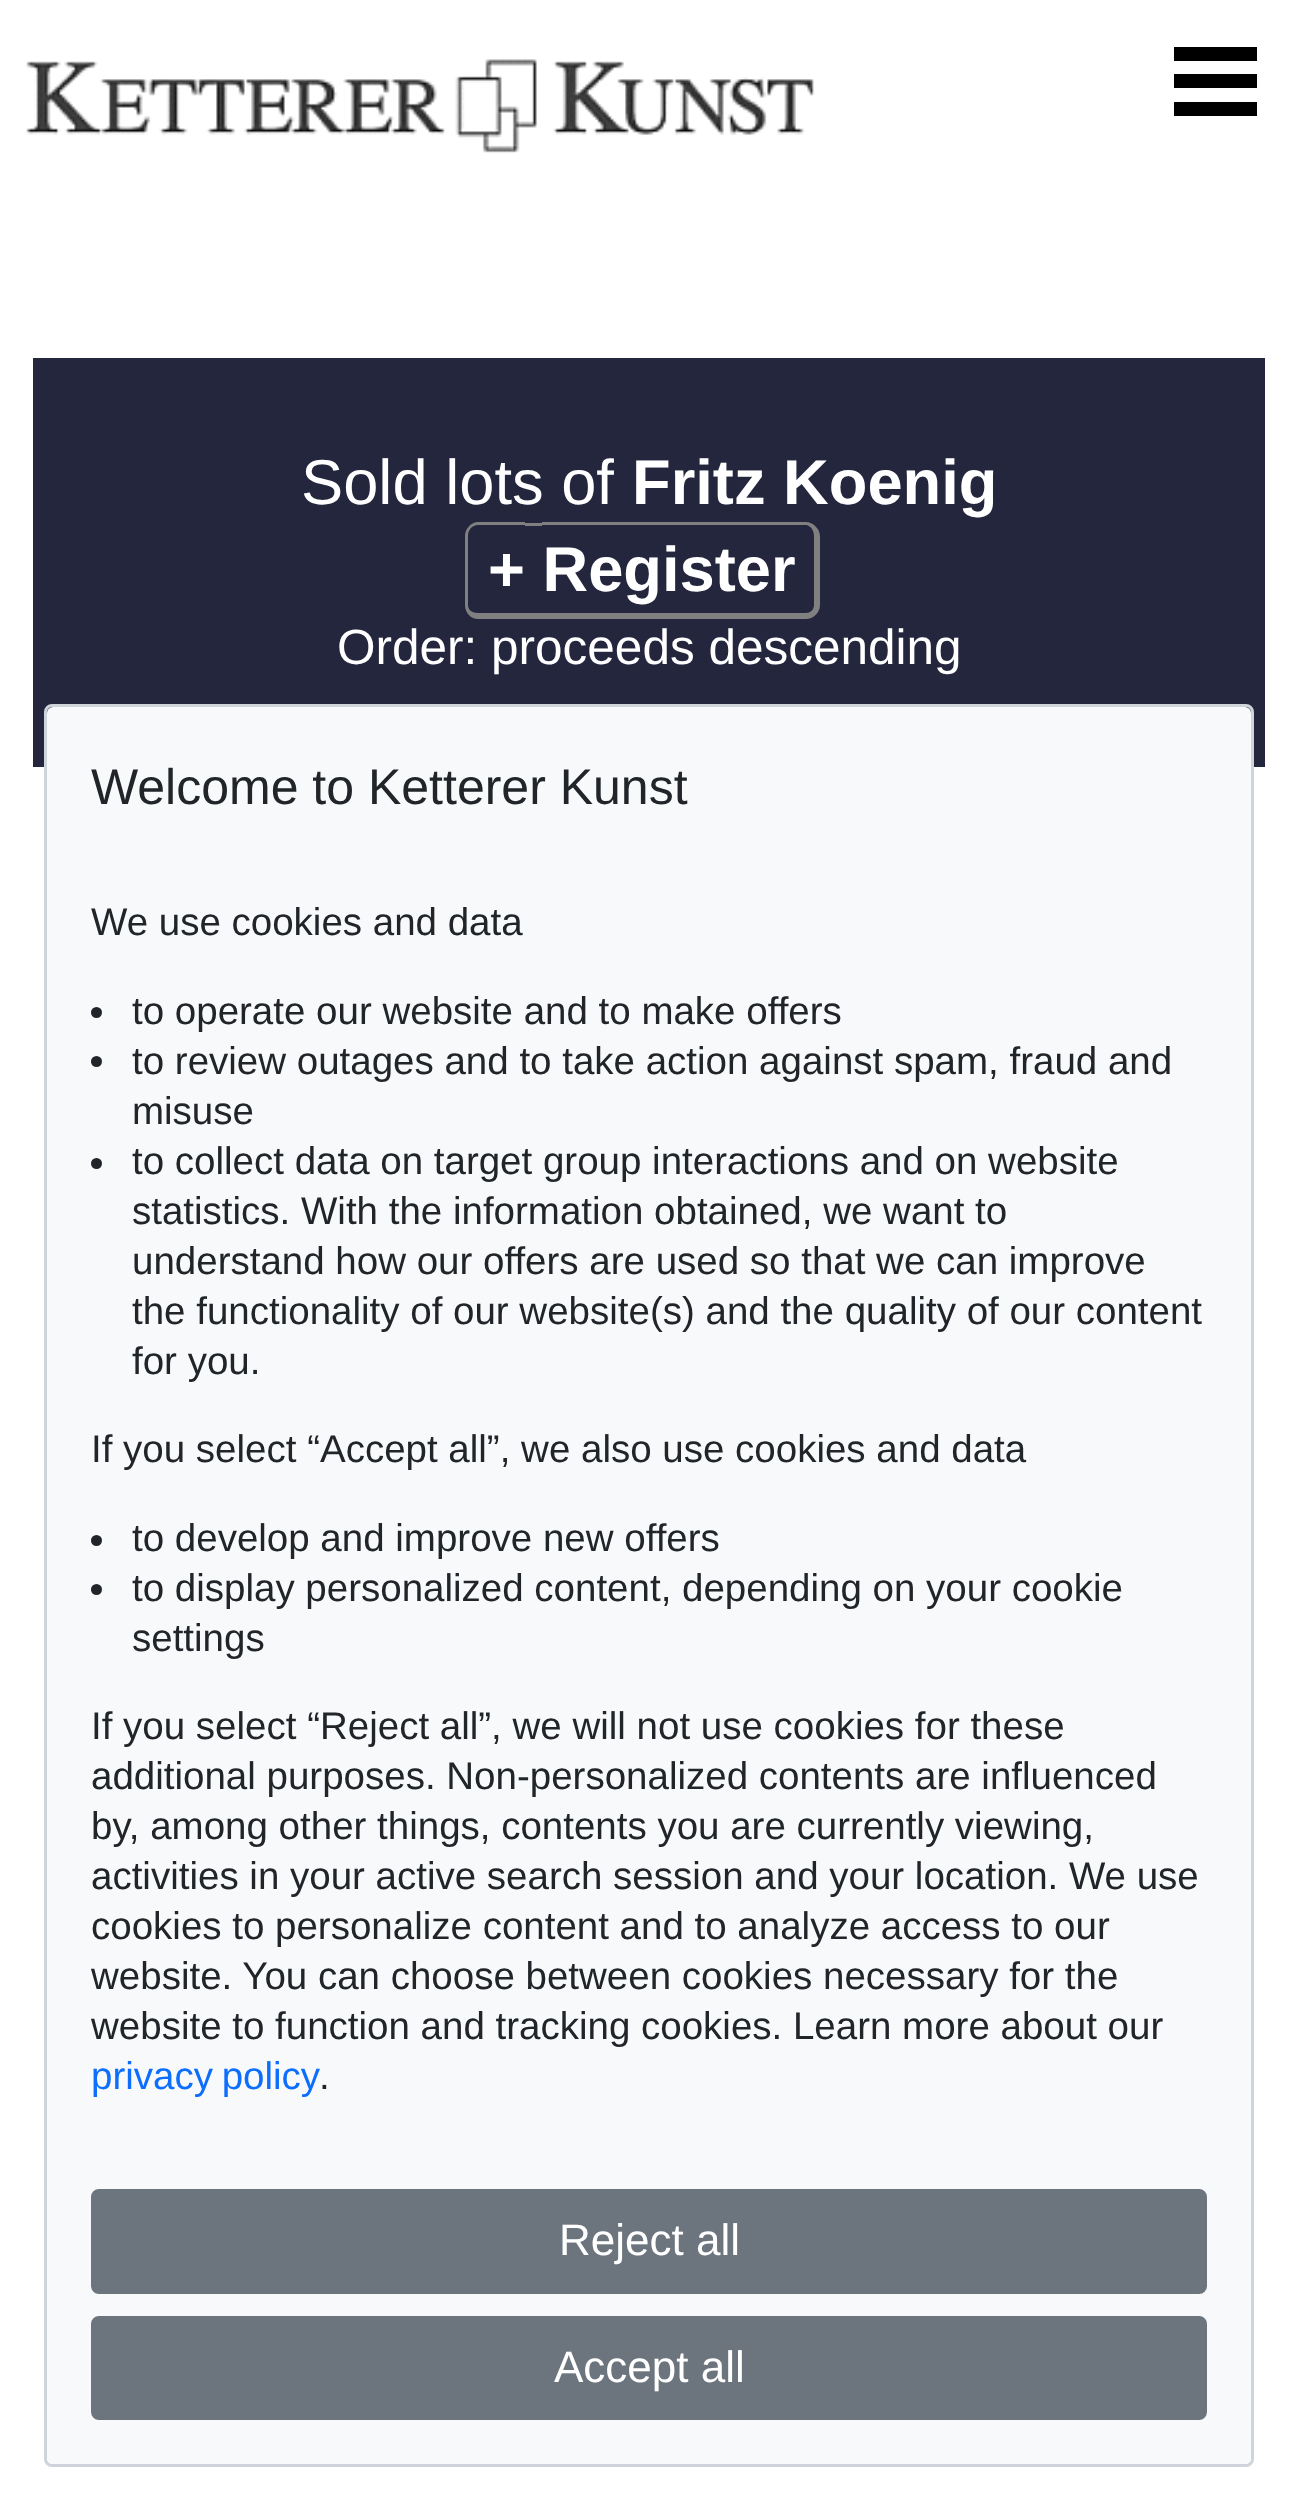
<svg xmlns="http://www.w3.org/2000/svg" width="1297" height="2510">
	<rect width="100%" height="100%" fill="#FFFFFF" />
	<image x="26" y="59" width="789" height="94" href="assets/img1.png" />
	<rect x="1174" y="47" width="83" height="14" fill="#000000" />
	<rect x="1174" y="102" width="83" height="14" fill="#000000" />
	<rect x="1174" y="74" width="83" height="14" fill="#000000" />
	<rect x="33" y="358" width="1232" height="409" fill="#23263D" />
	<text x="301" y="504" font-family="Liberation Sans" font-size="63.25" fill="#FFFFFF">Sold lots of</text>
	<text x="632" y="504" font-family="Liberation Sans" font-size="63.25" font-weight="700" fill="#FFFFFF">Fritz Koenig</text>
	<path d="M478 522H525V619H478C471 619 465 613 465 605V536C465 529 471 522 478 522ZM478 525H525V613H478C472 613 468 610 468 605V536C468 530 472 525 478 525Z" fill="#808080" fill-rule="evenodd" />
	<path d="M542 522H806C813 522 820 529 820 536V605C820 613 813 619 806 619H542ZM542 525H806C810 525 814 530 814 536V605C814 610 810 613 806 613H542Z" fill="#808080" fill-rule="evenodd" />
	<text x="488" y="591" font-family="Liberation Sans" font-size="63.25" font-weight="700" fill="#FFFFFF">+ Register</text>
	<rect x="525" y="523" width="17" height="3" fill="#808080" />
	<rect x="525" y="613" width="17" height="6" fill="#808080" />
	<text x="337" y="664" font-family="Liberation Sans" font-size="49.5" fill="#FFFFFF">Order: proceeds descending</text>
	<rect x="45.5" y="705.5" width="1207" height="1760" rx="6.5" fill="none" stroke="#CED4DA" stroke-width="3" />
	<rect x="47" y="707" width="1204" height="1757" rx="6" fill="#F8F9FA" />
	<text x="91" y="804" font-family="Liberation Sans" font-size="50" fill="#212529">Welcome to Ketterer Kunst</text>
	<text x="91" y="935" font-family="Liberation Sans" font-size="38.5" fill="#212529">We use cookies and data</text>
	<circle cx="96.5" cy="1012.5" r="5.5" fill="#212529" />
	<text x="132" y="1024" font-family="Liberation Sans" font-size="38.5" fill="#212529">to operate our website and to make offers</text>
	<circle cx="96.5" cy="1061.5" r="5.5" fill="#212529" />
	<g font-family="Liberation Sans" font-size="38.5" fill="#212529">
		<text x="132" y="1074">to review outages and to take action against spam, fraud and</text>
		<text x="132" y="1124">misuse</text>
	</g>
	<circle cx="96.5" cy="1163.5" r="5.5" fill="#212529" />
	<g font-family="Liberation Sans" font-size="38.5" fill="#212529">
		<text x="132" y="1174">to collect data on target group interactions and on website</text>
		<text x="132" y="1224">statistics. With the information obtained, we want to</text>
		<text x="132" y="1274">understand how our offers are used so that we can improve</text>
		<text x="132" y="1324">the functionality of our website(s) and the quality of our content</text>
		<text x="132" y="1374">for you.</text>
		<text x="91" y="1462">If you select “Accept all”, we also use cookies and data</text>
	</g>
	<circle cx="96.5" cy="1540.5" r="5.5" fill="#212529" />
	<text x="132" y="1551" font-family="Liberation Sans" font-size="38.5" fill="#212529">to develop and improve new offers</text>
	<circle cx="96.5" cy="1589.5" r="5.5" fill="#212529" />
	<g font-family="Liberation Sans" font-size="38.5" fill="#212529">
		<text x="132" y="1601">to display personalized content, depending on your cookie</text>
		<text x="132" y="1651">settings</text>
		<text x="91" y="1739">If you select “Reject all”, we will not use cookies for these</text>
		<text x="91" y="1789">additional purposes. Non-personalized contents are influenced</text>
		<text x="91" y="1839">by, among other things, contents you are currently viewing,</text>
		<text x="91" y="1889">activities in your active search session and your location. We use</text>
		<text x="91" y="1939">cookies to personalize content and to analyze access to our</text>
		<text x="91" y="1989">website. You can choose between cookies necessary for the</text>
		<text x="91" y="2039">website to function and tracking cookies. Learn more about our</text>
	</g>
	<text x="91" y="2089" word-spacing="-2" font-family="Liberation Sans" font-size="38.5" fill="#0D6EFD">privacy policy</text>
	<text x="319" y="2089" font-family="Liberation Sans" font-size="38.5" fill="#212529">.</text>
	<rect x="92.5" y="2190.5" width="1113" height="102" rx="6.5" fill="#6C757D" stroke="#6C757D" stroke-width="3" />
	<text x="559" y="2255" font-family="Liberation Sans" font-size="44" fill="#FFFFFF">Reject all</text>
	<rect x="92.5" y="2317.5" width="1113" height="101" rx="6.5" fill="#6C757D" stroke="#6C757D" stroke-width="3" />
	<text x="554" y="2382" font-family="Liberation Sans" font-size="44" fill="#FFFFFF">Accept all</text>
</svg>
